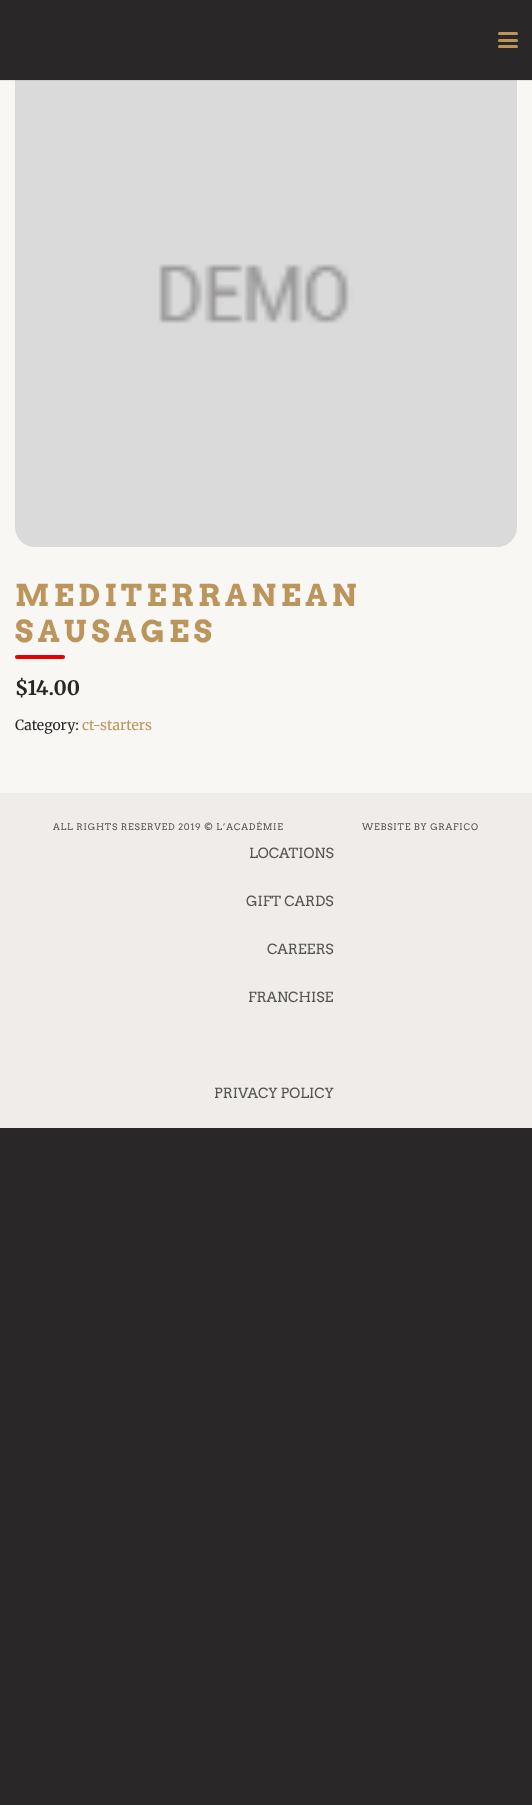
<svg xmlns="http://www.w3.org/2000/svg" width="532" height="1805">
	<rect width="100%" height="100%" fill="#292728" />
	<rect x="0" y="80" width="532" height="713" fill="#F9F7F4" />
	<image x="15" y="80" width="502" height="467" href="assets/img1.png" />
	<rect x="0" y="80" width="532" height="1" fill="#000000" fill-opacity="0.08" />
	<rect x="498" y="39" width="20" height="3" rx="1.5" fill="#BC955C" />
	<rect x="498" y="32" width="20" height="3" rx="1.5" fill="#BC955C" />
	<rect x="498" y="45" width="20" height="3" rx="1.5" fill="#BC955C" />
	<g font-family="Arvo" font-size="30" font-weight="700" letter-spacing="4.5" fill="#BC955C">
		<text x="15" y="606">MEDITERRANEAN</text>
		<text x="15" y="642">SAUSAGES</text>
	</g>
	<rect x="15" y="655" width="50" height="4" rx="2" fill="#E60000" />
	<text x="15" y="695" font-family="Merriweather" font-size="20" font-weight="700" fill="#292728">$14.00</text>
	<text x="15" y="730" font-family="Merriweather" font-size="14" fill="#292728">Category:</text>
	<text x="82" y="730" font-family="Merriweather" font-size="14" fill="#BC955C">ct-starters</text>
	<rect x="0" y="793" width="532" height="335" fill="#EFECE9" />
	<g font-family="Arvo" font-size="9" letter-spacing="0.8" fill="#555555">
		<text x="53" y="830">ALL RIGHTS RESERVED 2019 © L’ACADÉMIE</text>
		<text x="362" y="830">WEBSITE BY GRAFICO</text>
	</g>
	<g font-family="Arvo" font-size="14" fill="#555555">
		<text x="249" y="858">LOCATIONS</text>
		<text x="246" y="906">GIFT CARDS</text>
		<text x="267" y="954">CAREERS</text>
		<text x="248" y="1002">FRANCHISE</text>
		<text x="214" y="1098">PRIVACY POLICY</text>
	</g>
</svg>
